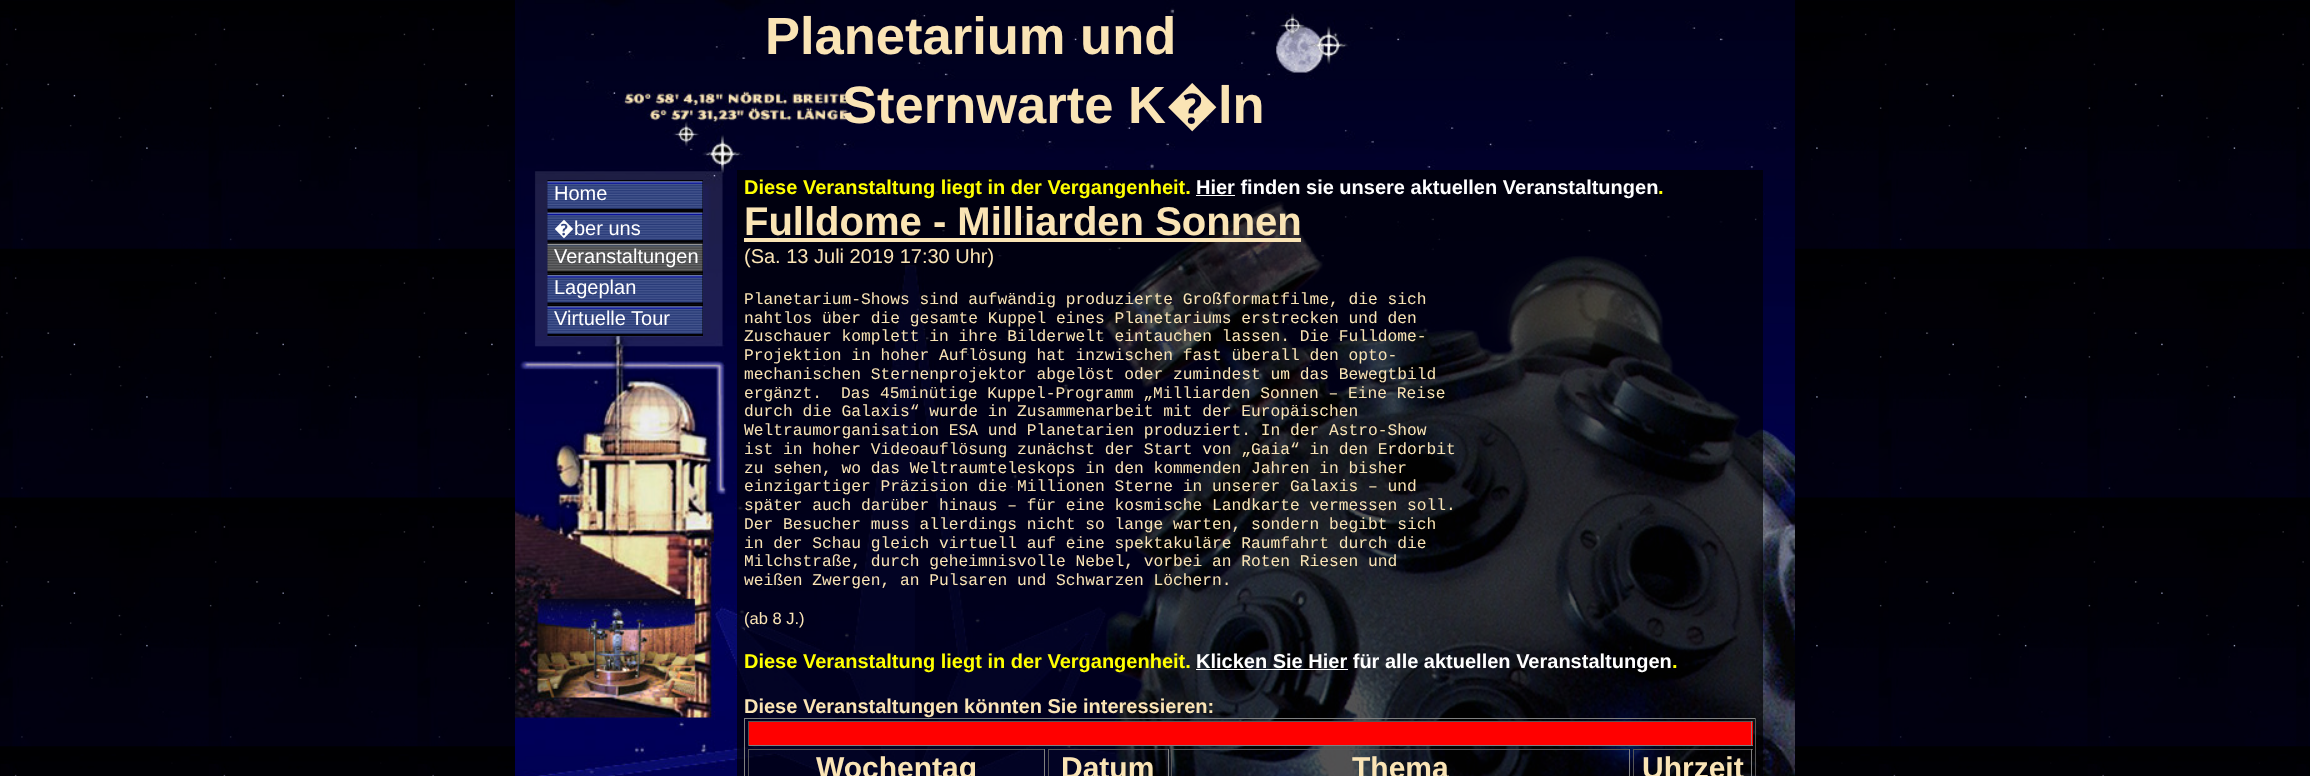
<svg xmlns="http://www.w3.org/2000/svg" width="2310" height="776">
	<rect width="100%" height="100%" fill="#FFFFFF" />
	<image x="0" y="0" width="2310" height="776" href="assets/img1.png" />
	<image x="515" y="0" width="1280" height="776" href="assets/img2.png" />
	<g font-family="Liberation Sans" font-size="52.5" font-weight="700" fill="#FAE4B5">
		<text x="765" y="54">Planetarium und</text>
		<text x="842" y="123">Sternwarte K</text>
	</g>
	<text x="1166" y="123" font-family="Noto Sans" font-size="52.5" font-weight="700" fill="#FAE4B5">�</text>
	<text x="1218" y="123" font-family="Liberation Sans" font-size="52.5" font-weight="700" fill="#FAE4B5">ln</text>
	<rect x="702" y="180" width="1" height="31" fill="#000000" />
	<image x="547" y="180" width="156" height="32" href="assets/img3.png" />
	<text x="554" y="200" font-family="Liberation Sans" font-size="20" fill="#FFFFFF">Home</text>
	<rect x="548" y="211" width="155" height="63" fill="#000000" />
	<image x="547" y="211" width="156" height="32" href="assets/img4.png" />
	<text x="554" y="235" font-family="Noto Sans" font-size="20" fill="#FFFFFF">�</text>
	<text x="574" y="235" font-family="Liberation Sans" font-size="20" fill="#FFFFFF">ber uns</text>
	<image x="547" y="242" width="156" height="32" href="assets/img5.png" />
	<text x="554" y="263" font-family="Liberation Sans" font-size="20" fill="#FFFFFF">Veranstaltungen</text>
	<rect x="702" y="274" width="1" height="62" fill="#000000" />
	<image x="547" y="273" width="156" height="32" href="assets/img6.png" />
	<text x="554" y="294" font-family="Liberation Sans" font-size="20" fill="#FFFFFF">Lageplan</text>
	<image x="547" y="305" width="156" height="32" href="assets/img7.png" />
	<text x="554" y="325" font-family="Liberation Sans" font-size="20" fill="#FFFFFF">Virtuelle Tour</text>
	<rect x="737" y="170" width="1026" height="606" fill="#000000" fill-opacity="0.66" />
	<text x="744" y="194" font-family="Liberation Sans" font-size="20" font-weight="700" fill="#FFFF00">Diese Veranstaltung liegt in der Vergangenheit.</text>
	<rect x="1196" y="195" width="39" height="1" fill="#FFFFFF" />
	<text x="1196" y="194" font-family="Liberation Sans" font-size="20" font-weight="700" fill="#FFFFFF">Hier finden sie unsere aktuellen Veranstaltungen</text>
	<text x="1658" y="194" font-family="Liberation Sans" font-size="20" font-weight="700" fill="#FFFF00">.</text>
	<text x="744" y="235" font-family="Liberation Sans" font-size="40" font-weight="700" fill="#FAE4B5">Fulldome - Milliarden Sonnen</text>
	<rect x="744" y="238" width="557" height="4" fill="#FAE4B5" />
	<text x="744" y="263" font-family="Liberation Sans" font-size="20" fill="#FAE4B5">(Sa. 13 Juli 2019 17:30 Uhr)</text>
	<g font-family="Liberation Mono" font-size="16.25" fill="#FAE4B5">
		<text x="744" y="304">Planetarium-Shows sind aufwändig produzierte Großformatfilme, die sich</text>
		<text x="744" y="323">nahtlos über die gesamte Kuppel eines Planetariums erstrecken und den</text>
		<text x="744" y="341">Zuschauer komplett in ihre Bilderwelt eintauchen lassen. Die Fulldome-</text>
		<text x="744" y="360">Projektion in hoher Auflösung hat inzwischen fast überall den opto-</text>
		<text x="744" y="379">mechanischen Sternenprojektor abgelöst oder zumindest um das Bewegtbild</text>
		<text x="744" y="398">ergänzt.</text>
		<text x="841" y="398">Das 45minütige Kuppel-Programm „Milliarden Sonnen – Eine Reise</text>
		<text x="744" y="416">durch die Galaxis“ wurde in Zusammenarbeit mit der Europäischen</text>
		<text x="744" y="435">Weltraumorganisation ESA und Planetarien produziert. In der Astro-Show</text>
		<text x="744" y="454">ist in hoher Videoauflösung zunächst der Start von „Gaia“ in den Erdorbit</text>
		<text x="744" y="473">zu sehen, wo das Weltraumteleskops in den kommenden Jahren in bisher</text>
		<text x="744" y="491">einzigartiger Präzision die Millionen Sterne in unserer Galaxis – und</text>
		<text x="744" y="510">später auch darüber hinaus – für eine kosmische Landkarte vermessen soll.</text>
		<text x="744" y="529">Der Besucher muss allerdings nicht so lange warten, sondern begibt sich</text>
		<text x="744" y="548">in der Schau gleich virtuell auf eine spektakuläre Raumfahrt durch die</text>
		<text x="744" y="566">Milchstraße, durch geheimnisvolle Nebel, vorbei an Roten Riesen und</text>
		<text x="744" y="585">weißen Zwergen, an Pulsaren und Schwarzen Löchern.</text>
	</g>
	<text x="744" y="624" font-family="Liberation Sans" font-size="16.5" fill="#FAE4B5">(ab 8 J.)</text>
	<text x="744" y="668" font-family="Liberation Sans" font-size="20" font-weight="700" fill="#FFFF00">Diese Veranstaltung liegt in der Vergangenheit.</text>
	<rect x="1196" y="669" width="152" height="1" fill="#FFFFFF" />
	<text x="1196" y="668" font-family="Liberation Sans" font-size="20" font-weight="700" fill="#FFFFFF">Klicken Sie Hier für alle aktuellen Veranstaltungen</text>
	<text x="1672" y="668" font-family="Liberation Sans" font-size="20" font-weight="700" fill="#FFFF00">.</text>
	<text x="744" y="713" font-family="Liberation Sans" font-size="20" font-weight="700" fill="#FAE4B5">Diese Veranstaltungen könnten Sie interessieren:</text>
	<rect x="744" y="718" width="1012" height="1" fill="#808080" />
	<rect x="1755" y="718" width="1" height="58" fill="#555555" />
	<rect x="744" y="718" width="1" height="58" fill="#808080" />
	<rect x="749" y="722" width="1004" height="23" fill="#FF0000" />
	<rect x="748" y="721" width="1005" height="1" fill="#555555" />
	<rect x="1751" y="721" width="1" height="25" fill="#808080" />
	<rect x="748" y="745" width="1005" height="1" fill="#808080" />
	<rect x="748" y="721" width="1" height="25" fill="#555555" />
	<rect x="748" y="749" width="297" height="1" fill="#555555" />
	<rect x="1044" y="749" width="1" height="27" fill="#808080" />
	<rect x="748" y="749" width="1" height="27" fill="#555555" />
	<text x="816" y="778" font-family="Liberation Sans" font-size="30" font-weight="700" fill="#FAE4B5">Wochentag</text>
	<rect x="1048" y="749" width="121" height="1" fill="#555555" />
	<rect x="1168" y="749" width="1" height="27" fill="#808080" />
	<rect x="1048" y="749" width="1" height="27" fill="#555555" />
	<text x="1061" y="778" font-family="Liberation Sans" font-size="30" font-weight="700" fill="#FAE4B5">Datum</text>
	<rect x="1171" y="749" width="459" height="1" fill="#555555" />
	<rect x="1629" y="749" width="1" height="27" fill="#808080" />
	<rect x="1171" y="749" width="1" height="27" fill="#555555" />
	<text x="1352" y="778" font-family="Liberation Sans" font-size="30" font-weight="700" fill="#FAE4B5">Thema</text>
	<rect x="1633" y="749" width="120" height="1" fill="#555555" />
	<rect x="1751" y="749" width="1" height="27" fill="#808080" />
	<rect x="1633" y="749" width="1" height="27" fill="#555555" />
	<text x="1642" y="778" font-family="Liberation Sans" font-size="30" font-weight="700" fill="#FAE4B5">Uhrzeit</text>
</svg>
